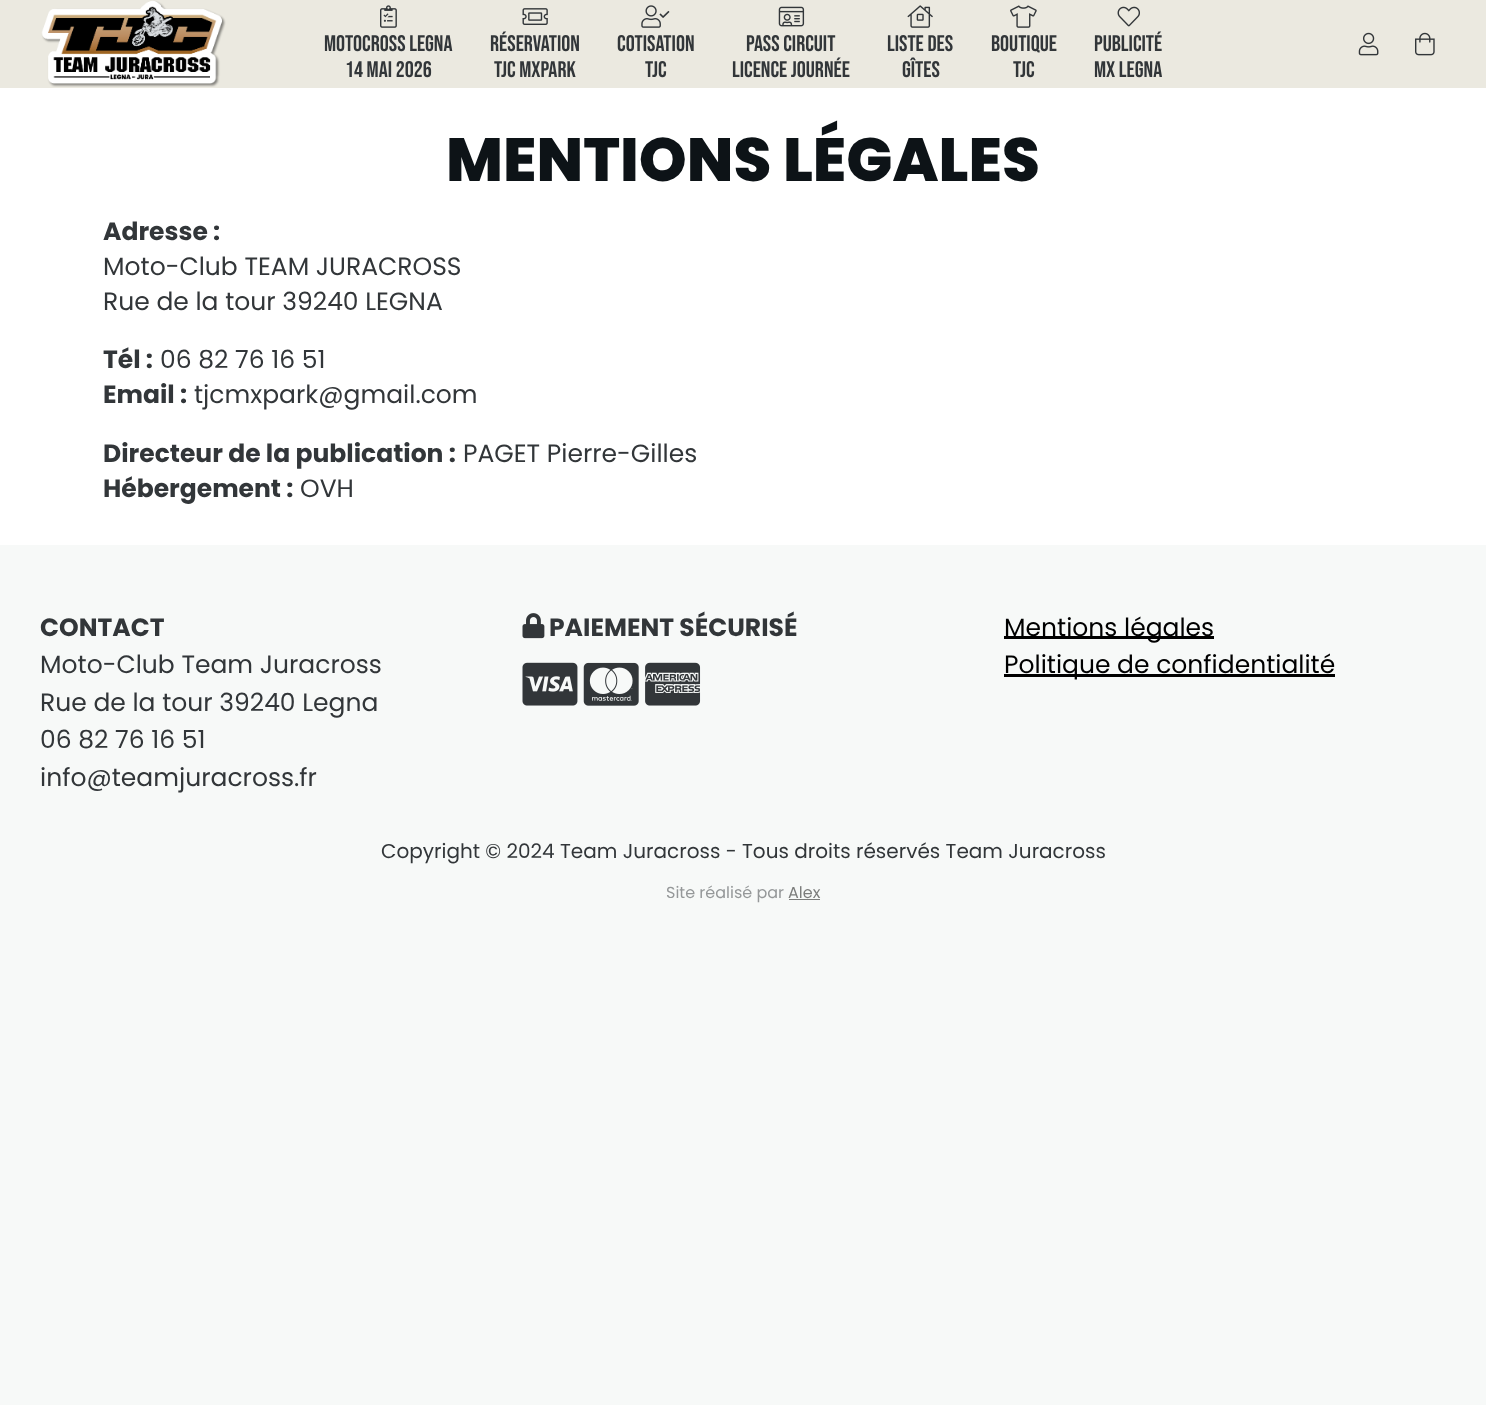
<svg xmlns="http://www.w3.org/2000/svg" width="1486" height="1405">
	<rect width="100%" height="100%" fill="#F7F9F8" />
	<rect x="0" y="0" width="1486" height="88" fill="#EBE9E0" />
	<image x="41" y="0" width="185" height="87" href="assets/img1.png" />
	<image x="380" y="5" width="17" height="23" href="assets/img2.png" />
	<g font-family="Bebas Neue" font-size="22.5" fill="#323639">
		<text x="324" y="51">Motocross Legna</text>
		<text x="345" y="77">14 MAI 2026</text>
	</g>
	<image x="522" y="8" width="26" height="17" href="assets/img3.png" />
	<g font-family="Bebas Neue" font-size="22.5" fill="#323639">
		<text x="490" y="51">Réservation</text>
		<text x="494" y="77">TJC MXPark</text>
	</g>
	<image x="641" y="5" width="29" height="23" href="assets/img4.png" />
	<g font-family="Bebas Neue" font-size="22.5" fill="#323639">
		<text x="617" y="51">Cotisation</text>
		<text x="645" y="77">TJC</text>
	</g>
	<image x="778" y="6" width="27" height="21" href="assets/img5.png" />
	<g font-family="Bebas Neue" font-size="22.5" fill="#323639">
		<text x="746" y="51">Pass Circuit</text>
		<text x="732" y="77">Licence journée</text>
	</g>
	<image x="907" y="5" width="26" height="23" href="assets/img6.png" />
	<g font-family="Bebas Neue" font-size="22.5" fill="#323639">
		<text x="887" y="51">Liste des</text>
		<text x="902" y="77">Gîtes</text>
	</g>
	<image x="1010" y="5" width="27" height="23" href="assets/img7.png" />
	<g font-family="Bebas Neue" font-size="22.5" fill="#323639">
		<text x="991" y="51">Boutique</text>
		<text x="1013" y="77">TJC</text>
	</g>
	<image x="1117" y="6" width="23" height="21" href="assets/img8.png" />
	<g font-family="Bebas Neue" font-size="22.5" fill="#323639">
		<text x="1094" y="51">Publicité</text>
		<text x="1094" y="77">MX Legna</text>
	</g>
	<image x="1358" y="32" width="21" height="24" href="assets/img9.png" />
	<image x="1415" y="32" width="20" height="24" href="assets/img10.png" />
	<rect x="0" y="88" width="1486" height="457" fill="#FFFFFF" />
	<text x="446" y="181" font-family="Poppins" font-size="61" font-weight="800" fill="#0D1317">MENTIONS LÉGALES</text>
	<text x="103" y="240" font-family="Poppins" font-size="25" font-weight="700" fill="#323639">Adresse :</text>
	<g font-family="Poppins" font-size="25" fill="#323639">
		<text x="103" y="275">Moto-Club TEAM JURACROSS</text>
		<text x="103" y="310">Rue de la tour 39240 LEGNA</text>
	</g>
	<text x="103" y="368" font-family="Poppins" font-size="25" font-weight="700" fill="#323639">Tél :</text>
	<text x="160" y="368" font-family="Poppins" font-size="25" fill="#323639">06 82 76 16 51</text>
	<text x="103" y="403" font-family="Poppins" font-size="25" font-weight="700" fill="#323639">Email :</text>
	<text x="194" y="403" font-family="Poppins" font-size="25" fill="#323639">tjcmxpark@gmail.com</text>
	<text x="103" y="462" font-family="Poppins" font-size="25" font-weight="700" fill="#323639">Directeur de la publication :</text>
	<text x="463" y="462" font-family="Poppins" font-size="25" fill="#323639">PAGET Pierre-Gilles</text>
	<text x="103" y="497" font-family="Poppins" font-size="25" font-weight="700" fill="#323639">Hébergement :</text>
	<text x="300" y="497" font-family="Poppins" font-size="25" fill="#323639">OVH</text>
	<text x="40" y="636" font-family="Poppins" font-size="25" font-weight="700" fill="#323639">CONTACT</text>
	<g font-family="Poppins" font-size="25" fill="#323639">
		<text x="40" y="673">Moto-Club Team Juracross</text>
		<text x="40" y="711">Rue de la tour 39240 Legna</text>
		<text x="40" y="748">06 82 76 16 51</text>
		<text x="40" y="786">info@teamjuracross.fr</text>
	</g>
	<image x="522" y="613" width="23" height="26" href="assets/img11.png" />
	<text x="549" y="636" font-family="Poppins" font-size="25" font-weight="700" fill="#323639">PAIEMENT SÉCURISÉ</text>
	<image x="522" y="662" width="56" height="44" href="assets/img12.png" />
	<image x="583" y="662" width="56" height="44" href="assets/img13.png" />
	<image x="645" y="662" width="56" height="44" href="assets/img14.png" />
	<rect x="1004" y="636" width="210" height="3" fill="#000000" />
	<text x="1004" y="636" font-family="Poppins" font-size="25" fill="#000000">Mentions légales</text>
	<rect x="1004" y="674" width="331" height="3" fill="#000000" />
	<text x="1004" y="673" font-family="Poppins" font-size="25" fill="#000000">Politique de confidentialité</text>
	<text x="381" y="858" font-family="Poppins" font-size="20" fill="#323639">Copyright © 2024 Team Juracross - Tous droits réservés Team Juracross</text>
	<text x="666" y="898" font-family="Poppins" font-size="16" fill="#959899">Site réalisé par</text>
	<text x="788" y="898" font-family="Poppins" font-size="16" fill="#7C7D7C">Alex</text>
	<rect x="789" y="899" width="31" height="1" fill="#7C7D7C" />
</svg>
